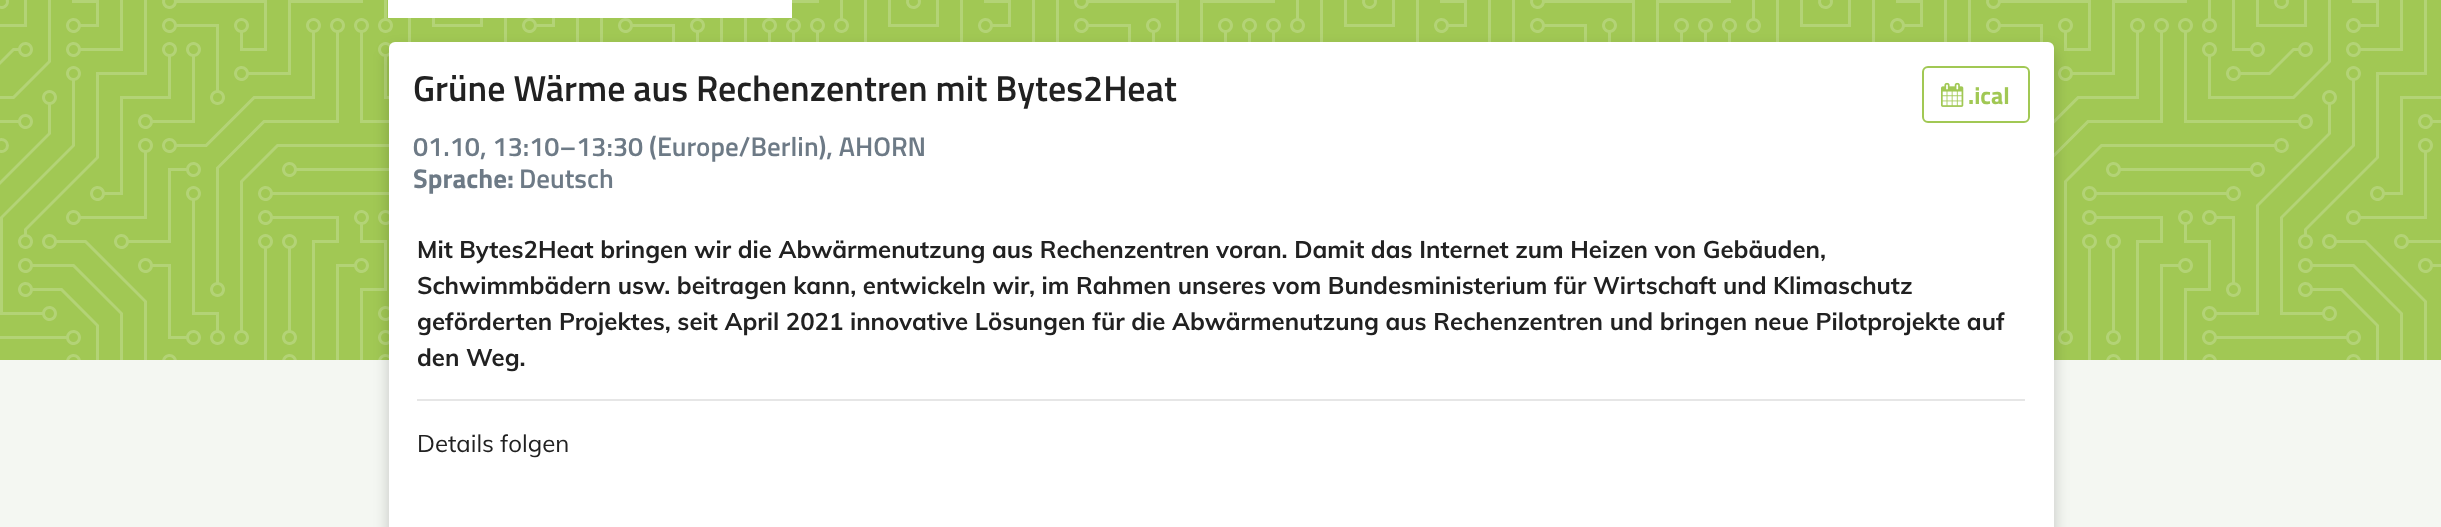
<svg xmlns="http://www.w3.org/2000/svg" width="2441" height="527">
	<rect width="100%" height="100%" fill="#F4F7F2" />
	<rect x="0" y="0" width="2441" height="360" fill="#A1C854" />
	<image x="0" y="0" width="2441" height="360" href="assets/img1.png" />
	<rect x="388" y="0" width="404" height="18" fill="#FFFFFF" />
	<rect x="389" y="50" width="1665" height="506" rx="6" fill="#000000" fill-opacity="0.2" filter="blur(7.5px)" />
	<rect x="389" y="42" width="1665" height="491" rx="6" fill="#FFFFFF" />
	<text x="413" y="101" font-family="Titillium Web" font-size="36" font-weight="600" fill="#212121">Grüne Wärme aus Rechenzentren mit Bytes2Heat</text>
	<rect x="1923" y="67" width="106" height="55" rx="5" fill="none" stroke="#A1C854" stroke-width="2" />
	<image x="1941" y="82" width="23" height="25" href="assets/img2.png" />
	<text x="1968" y="104" font-family="Titillium Web" font-size="24" font-weight="700" fill="#A1C854">.ical</text>
	<text x="413" y="156" font-family="Titillium Web" font-size="27" font-weight="600" fill="#6D7A86">01.10, 13:10–13:30 (Europe/Berlin), AHORN</text>
	<text x="413" y="188" font-family="Titillium Web" font-size="27" font-weight="700" fill="#6D7A86">Sprache:</text>
	<text x="519" y="188" font-family="Titillium Web" font-size="27" font-weight="600" fill="#6D7A86">Deutsch</text>
	<g font-family="Muli" font-size="24" font-weight="700" fill="#212121">
		<text x="417" y="258">Mit Bytes2Heat bringen wir die Abwärmenutzung aus Rechenzentren voran. Damit das Internet zum Heizen von Gebäuden,</text>
		<text x="417" y="294">Schwimmbädern usw. beitragen kann, entwickeln wir, im Rahmen unseres vom Bundesministerium für Wirtschaft und Klimaschutz</text>
		<text x="417" y="330">geförderten Projektes, seit April 2021 innovative Lösungen für die Abwärmenutzung aus Rechenzentren und bringen neue Pilotprojekte auf</text>
		<text x="417" y="366">den Weg.</text>
	</g>
	<rect x="417" y="399" width="1608" height="2" fill="#E6E6E6" />
	<text x="417" y="452" font-family="Muli" font-size="24" fill="#212121">Details folgen</text>
</svg>
